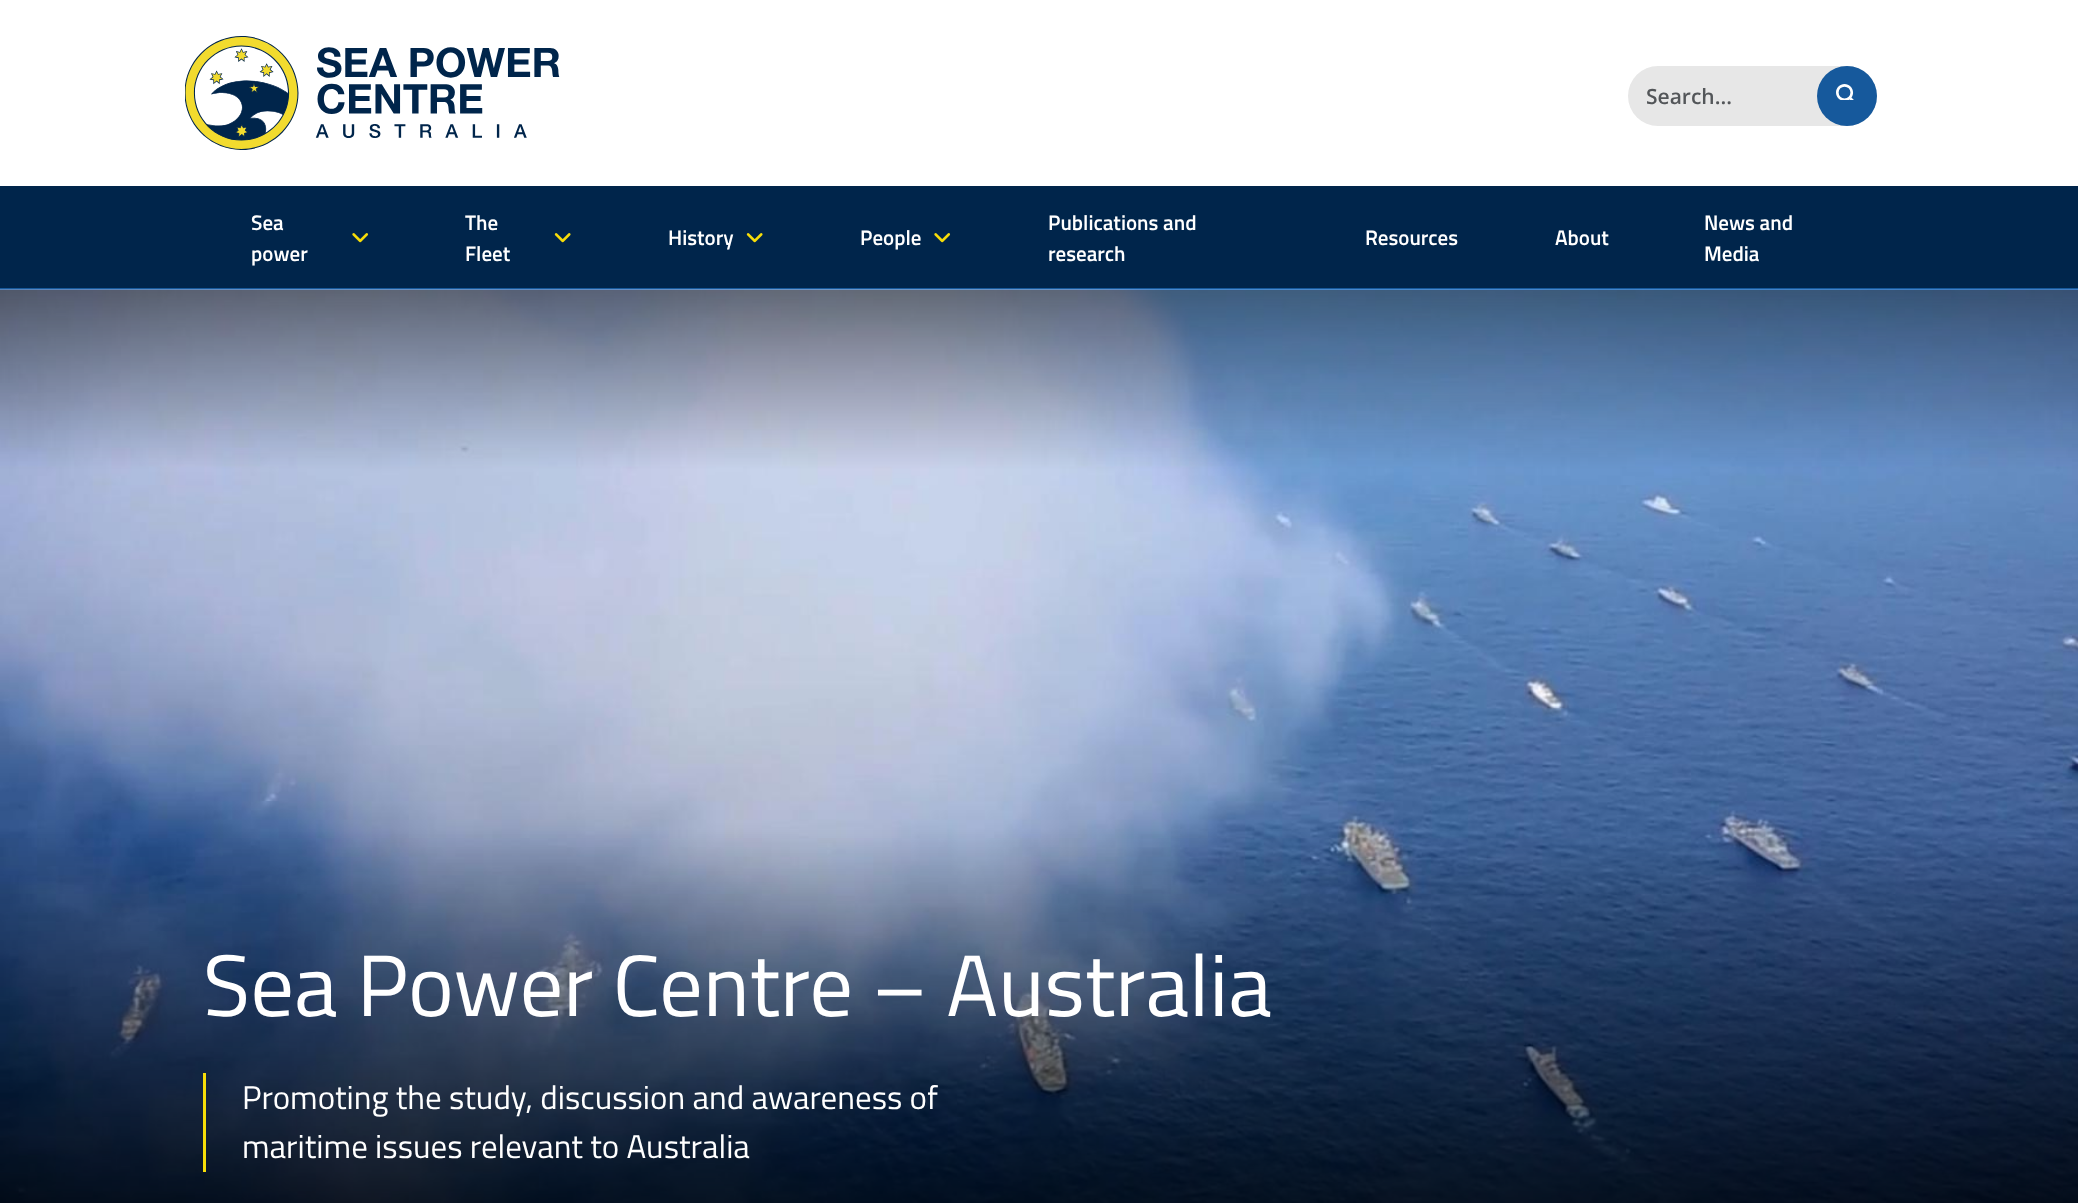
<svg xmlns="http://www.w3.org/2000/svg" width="2078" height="1203">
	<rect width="100%" height="100%" fill="#FFFFFF" />
	<image x="185" y="36" width="375" height="114" href="assets/img1.png" />
	<rect x="1628" y="66" width="249" height="60" rx="30" fill="#E7E7E7" />
	<text x="1646" y="104" font-family="Open Sans" font-size="21" font-weight="600" fill="#535659">Search...</text>
	<circle cx="1847" cy="96" r="30" fill="#16599C" />
	<image x="1836" y="84" width="18" height="16" href="assets/img2.png" />
	<rect x="0" y="186" width="2078" height="102" fill="#00254B" />
	<rect x="0" y="288" width="2078" height="2" fill="#16599C" />
	<g font-family="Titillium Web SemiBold" font-size="21" font-weight="600" fill="#FFFFFF">
		<text x="251" y="230">Sea</text>
		<text x="251" y="261">power</text>
	</g>
	<image x="352" y="233" width="17" height="10" href="assets/img3.png" />
	<g font-family="Titillium Web SemiBold" font-size="21" font-weight="600" fill="#FFFFFF">
		<text x="465" y="230">The</text>
		<text x="465" y="261">Fleet</text>
	</g>
	<image x="554" y="233" width="17" height="10" href="assets/img4.png" />
	<text x="668" y="245" font-family="Titillium Web SemiBold" font-size="21" font-weight="600" fill="#FFFFFF">History</text>
	<image x="746" y="233" width="17" height="10" href="assets/img4.png" />
	<text x="860" y="245" font-family="Titillium Web SemiBold" font-size="21" font-weight="600" fill="#FFFFFF">People</text>
	<image x="934" y="233" width="17" height="10" href="assets/img3.png" />
	<g font-family="Titillium Web SemiBold" font-size="21" font-weight="600" fill="#FFFFFF">
		<text x="1048" y="230">Publications and</text>
		<text x="1048" y="261">research</text>
		<text x="1365" y="245">Resources</text>
		<text x="1555" y="245">About</text>
		<text x="1704" y="230">News and</text>
		<text x="1704" y="261">Media</text>
	</g>
	<image x="0" y="289" width="2078" height="914" href="assets/img5.png" />
	<text x="203" y="1016" font-family="Titillium Web" font-size="87" fill="#FFFFFF">Sea Power Centre – Australia</text>
	<rect x="203" y="1073" width="3" height="99" fill="#F7DD08" />
	<g font-family="Titillium Web" font-size="33" fill="#FFFFFF">
		<text x="242" y="1109">Promoting the study, discussion and awareness of</text>
		<text x="242" y="1158">maritime issues relevant to Australia</text>
	</g>
</svg>
